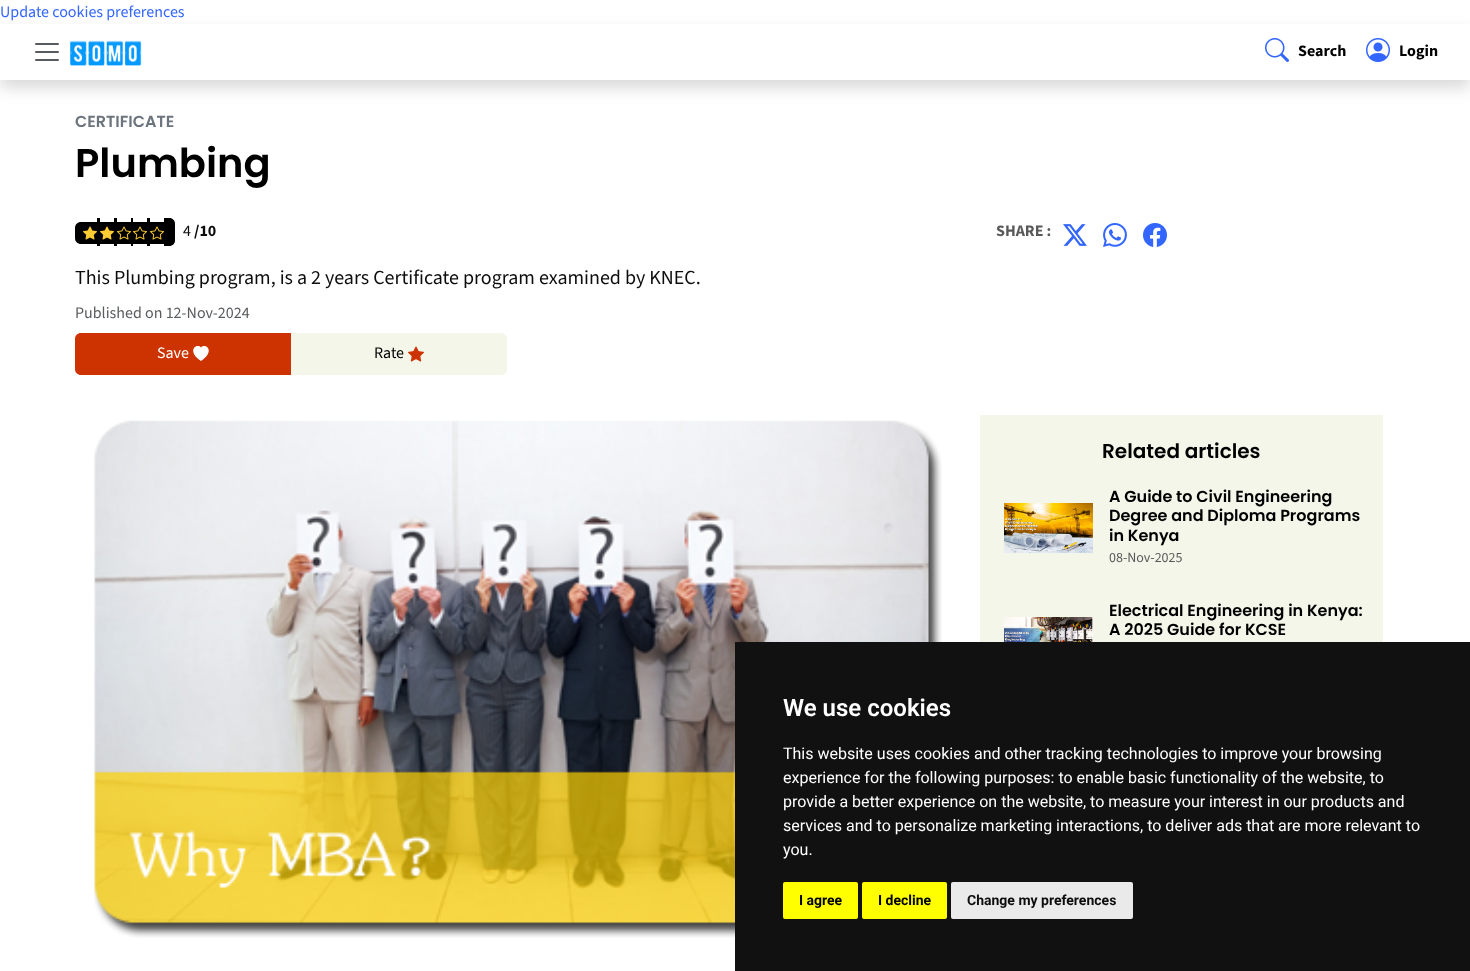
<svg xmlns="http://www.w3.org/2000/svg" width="1470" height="971">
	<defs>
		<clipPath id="clip1"><path d="M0 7H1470V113H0ZM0 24H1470V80H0Z" clip-rule="evenodd" /></clipPath>
	</defs>
	<rect width="100%" height="100%" fill="#FFFFFF" />
	<text x="0" y="17" font-family="'Source Sans 3'" font-size="16" fill="#3366FF">Update cookies preferences</text>
	<g clip-path="url(#clip1)">
		<rect x="0" y="32" width="1470" height="56" fill="#000000" fill-opacity="0.15" filter="blur(8px)" />
	</g>
	<image x="35" y="43" width="24" height="18" href="assets/img1.png" />
	<image x="70" y="40" width="72" height="26" href="assets/img2.png" />
	<image x="1265" y="38" width="24" height="24" href="assets/img3.png" />
	<text x="1298" y="56" font-family="'Source Sans 3'" font-size="16" font-weight="700" fill="#000000">Search</text>
	<image x="1366" y="38" width="24" height="24" href="assets/img4.png" />
	<text x="1399" y="56" font-family="'Source Sans 3'" font-size="16" font-weight="700" fill="#000000">Login</text>
	<text x="75" y="127" font-family="Poppins" font-size="16" font-weight="600" fill="#6C757D">CERTIFICATE</text>
	<text x="75" y="177" font-family="Poppins" font-size="40" font-weight="600" fill="#000000">Plumbing</text>
	<path d="M81 222H97V244H81C77.5 244 75 241.5 75 238V228C75 224.5 77.5 222 81 222Z" fill="#000000" />
	<rect x="97" y="218" width="3" height="28" fill="#000000" />
	<rect x="100" y="222" width="14" height="22" fill="#000000" />
	<rect x="114" y="218" width="3" height="28" fill="#000000" />
	<rect x="117" y="222" width="14" height="22" fill="#000000" />
	<rect x="131" y="218" width="2" height="28" fill="#000000" />
	<rect x="133" y="222" width="14" height="22" fill="#000000" />
	<rect x="147" y="218" width="3" height="28" fill="#000000" />
	<rect x="150" y="222" width="14" height="22" fill="#000000" />
	<path d="M164 218H169.5C172.5 218 175 220.5 175 223.5V240.5C175 243.5 172.5 246 169.5 246H164Z" fill="#000000" />
	<image x="83" y="226" width="14" height="14" href="assets/img5.png" />
	<image x="100" y="226" width="14" height="14" href="assets/img5.png" />
	<image x="117" y="226" width="14" height="14" href="assets/img6.png" />
	<image x="133" y="226" width="14" height="14" href="assets/img6.png" />
	<image x="150" y="226" width="14" height="14" href="assets/img6.png" />
	<text x="183" y="236" font-family="'Source Sans 3'" font-size="16" fill="#0D0D0D">4</text>
	<text x="194" y="236" font-family="'Source Sans 3'" font-size="16" font-weight="700" fill="#0D0D0D">/10</text>
	<text x="996" y="236" font-family="'Source Sans 3'" font-size="16" font-weight="700" fill="#595959">SHARE :</text>
	<image x="1063" y="224" width="24" height="22" href="assets/img7.png" />
	<image x="1103" y="223" width="24" height="24" href="assets/img8.png" />
	<image x="1143" y="223" width="24" height="24" href="assets/img9.png" />
	<text x="75" y="284" font-family="'Source Sans 3'" font-size="20" fill="#0D0D0D">This Plumbing program, is a 2 years Certificate program examined by KNEC.</text>
	<text x="75" y="318" font-family="'Source Sans 3'" font-size="16" fill="#595C5F">Published on 12-Nov-2024</text>
	<path d="M81 333H291V375H81C77.5 375 75 372.5 75 369V339C75 335.5 77.5 333 81 333Z" fill="#CC3300" />
	<text x="157" y="358" font-family="'Source Sans 3'" font-size="16" fill="#FFFFFF">Save</text>
	<path d="M201 347.5C205.5 342.5 216 351 201 361C186 351 196.5 342.5 201 347.5Z" fill="#FFFFFF" />
	<path d="M291 333H501C504.5 333 507 335.5 507 339V369C507 372.5 504.5 375 501 375H291Z" fill="#F5F6EA" />
	<text x="374" y="358" font-family="'Source Sans 3'" font-size="16" fill="#000000">Rate</text>
	<image x="408" y="346" width="16" height="16" href="assets/img10.png" />
	<image x="94" y="420" width="848" height="518" href="assets/img11.png" />
	<rect x="980" y="415" width="403" height="227" fill="#F5F6EA" />
	<text x="1102" y="458" font-family="Poppins" font-size="20" font-weight="600" fill="#000000">Related articles</text>
	<image x="1004" y="503" width="89" height="50" href="assets/img12.png" />
	<g font-family="Poppins" font-size="16" font-weight="600" fill="#000000">
		<text x="1109" y="502">A Guide to Civil Engineering</text>
		<text x="1109" y="521">Degree and Diploma Programs</text>
		<text x="1109" y="541">in Kenya</text>
	</g>
	<text x="1109" y="562" font-family="'Source Sans 3'" font-size="14" fill="#595959">08-Nov-2025</text>
	<image x="1004" y="617" width="89" height="25" href="assets/img13.png" />
	<g font-family="Poppins" font-size="16" font-weight="600" fill="#000000">
		<text x="1109" y="616">Electrical Engineering in Kenya:</text>
		<text x="1109" y="635">A 2025 Guide for KCSE</text>
	</g>
	<rect x="735" y="642" width="735" height="329" fill="#111111" />
	<text x="783" y="716" font-family="Roboto" font-size="24" font-weight="600" fill="#FFFFFF">We use cookies</text>
	<g font-family="Roboto" font-size="16" fill="#FFFFFF">
		<text x="783" y="759">This website uses cookies and other tracking technologies to improve your browsing</text>
		<text x="783" y="783">experience for the following purposes: to enable basic functionality of the website, to</text>
		<text x="783" y="807">provide a better experience on the website, to measure your interest in our products and</text>
		<text x="783" y="831">services and to personalize marketing interactions, to deliver ads that are more relevant to</text>
		<text x="783" y="855">you.</text>
	</g>
	<rect x="783" y="882" width="75" height="37" rx="2" fill="#FFFF00" />
	<text x="799" y="905" font-family="Roboto" font-size="14" font-weight="700" fill="#000000">I agree</text>
	<rect x="862" y="882" width="85" height="37" rx="2" fill="#FFFF00" />
	<text x="878" y="905" font-family="Roboto" font-size="14" font-weight="700" fill="#000000">I decline</text>
	<rect x="951" y="882" width="182" height="37" rx="2" fill="#EAEAEA" />
	<text x="967" y="905" font-family="Roboto" font-size="14" font-weight="700" fill="#0D0D0D">Change my preferences</text>
</svg>
